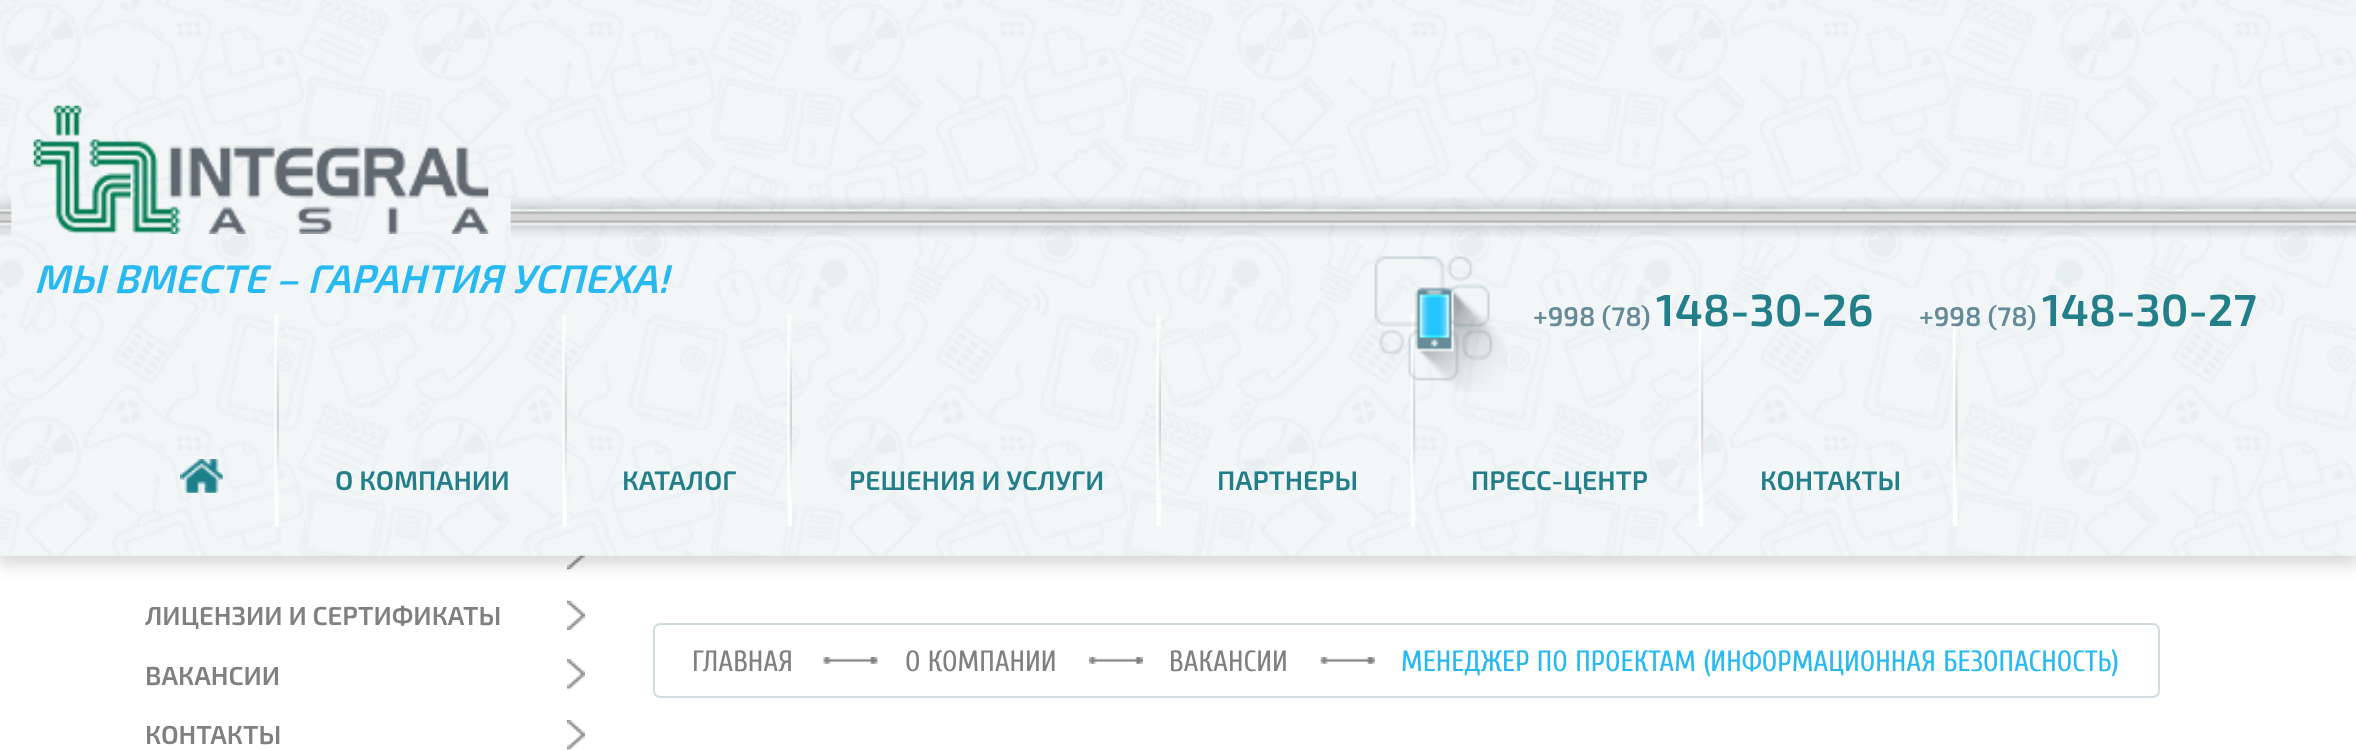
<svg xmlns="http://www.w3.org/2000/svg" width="2356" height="751">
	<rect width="100%" height="100%" fill="#FFFFFF" />
	<image x="567" y="555" width="18" height="15" href="assets/img14.png" />
	<rect x="-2" y="5" width="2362" height="560" fill="#000000" fill-opacity="0.15" filter="blur(8px)" />
	<image x="0" y="0" width="2356" height="556" href="assets/img1.png" />
	<image x="0" y="197" width="12" height="40" href="assets/img2.png" />
	<image x="510" y="197" width="1846" height="40" href="assets/img3.png" />
	<image x="33" y="105" width="456" height="129" href="assets/img4.png" />
	<text x="34" y="293" font-family="'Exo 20'" font-size="40" font-weight="600" font-style="italic" fill="#29B9F1">МЫ ВМЕСТЕ – ГАРАНТИЯ УСПЕХА!</text>
	<image x="180" y="459" width="43" height="34" href="assets/img5.png" />
	<image x="274" y="315" width="5" height="212" href="assets/img6.png" />
	<text x="335" y="490" font-family="'Exo 20'" font-size="27" font-weight="600" fill="#227E89">О КОМПАНИИ</text>
	<image x="562" y="315" width="5" height="212" href="assets/img7.png" />
	<text x="622" y="490" font-family="'Exo 20'" font-size="27" font-weight="600" fill="#227E89">КАТАЛОГ</text>
	<image x="787" y="315" width="5" height="212" href="assets/img8.png" />
	<text x="849" y="490" font-family="'Exo 20'" font-size="27" font-weight="600" fill="#227E89">РЕШЕНИЯ И УСЛУГИ</text>
	<image x="1156" y="315" width="5" height="212" href="assets/img9.png" />
	<text x="1217" y="490" font-family="'Exo 20'" font-size="27" font-weight="600" fill="#227E89">ПАРТНЕРЫ</text>
	<image x="1410" y="315" width="6" height="212" href="assets/img10.png" />
	<text x="1471" y="490" font-family="'Exo 20'" font-size="27" font-weight="600" fill="#227E89">ПРЕСС-ЦЕНТР</text>
	<image x="1698" y="315" width="6" height="212" href="assets/img11.png" />
	<text x="1760" y="490" font-family="'Exo 20'" font-size="27" font-weight="600" fill="#227E89">КОНТАКТЫ</text>
	<image x="1953" y="315" width="5" height="212" href="assets/img12.png" />
	<image x="1374" y="256" width="133" height="136" href="assets/img13.png" />
	<text x="1533" y="326" font-family="'Exo 20'" font-size="27" font-weight="600" fill="#658A98">+998 (78)</text>
	<text x="1656" y="326" font-family="'Exo 20'" font-size="45" font-weight="600" fill="#227E89">148-30-26</text>
	<text x="1919" y="326" font-family="'Exo 20'" font-size="27" font-weight="600" fill="#658A98">+998 (78)</text>
	<text x="2042" y="326" font-family="'Exo 20'" font-size="45" font-weight="600" fill="#227E89">148-30-27</text>
	<image x="567" y="600" width="18" height="30" href="assets/img15.png" />
	<text x="145" y="625" font-family="'Exo 20'" font-size="26.1" font-weight="600" fill="#808080">ЛИЦЕНЗИИ И СЕРТИФИКАТЫ</text>
	<image x="567" y="659" width="18" height="30" href="assets/img16.png" />
	<text x="145" y="685" font-family="'Exo 20'" font-size="26.1" font-weight="600" fill="#808080">ВАКАНСИИ</text>
	<image x="567" y="720" width="18" height="30" href="assets/img17.png" />
	<text x="145" y="744" font-family="'Exo 20'" font-size="26.1" font-weight="600" fill="#808080">КОНТАКТЫ</text>
	<rect x="654" y="624" width="1505" height="73" rx="6" fill="none" stroke="#D1DCE0" stroke-width="2" />
	<text x="692" y="671" font-family="Cuprum" font-size="29.25" fill="#808080">ГЛАВНАЯ</text>
	<image x="823" y="657" width="55" height="7" href="assets/img18.png" />
	<text x="905" y="671" font-family="Cuprum" font-size="29.25" fill="#808080">О КОМПАНИИ</text>
	<image x="1089" y="657" width="54" height="7" href="assets/img19.png" />
	<text x="1169" y="671" font-family="Cuprum" font-size="29.25" fill="#808080">ВАКАНСИИ</text>
	<image x="1320" y="657" width="55" height="7" href="assets/img20.png" />
	<text x="1401" y="671" font-family="Cuprum" font-size="29.25" fill="#29B9F1">МЕНЕДЖЕР ПО ПРОЕКТАМ (ИНФОРМАЦИОННАЯ БЕЗОПАСНОСТЬ)</text>
</svg>
